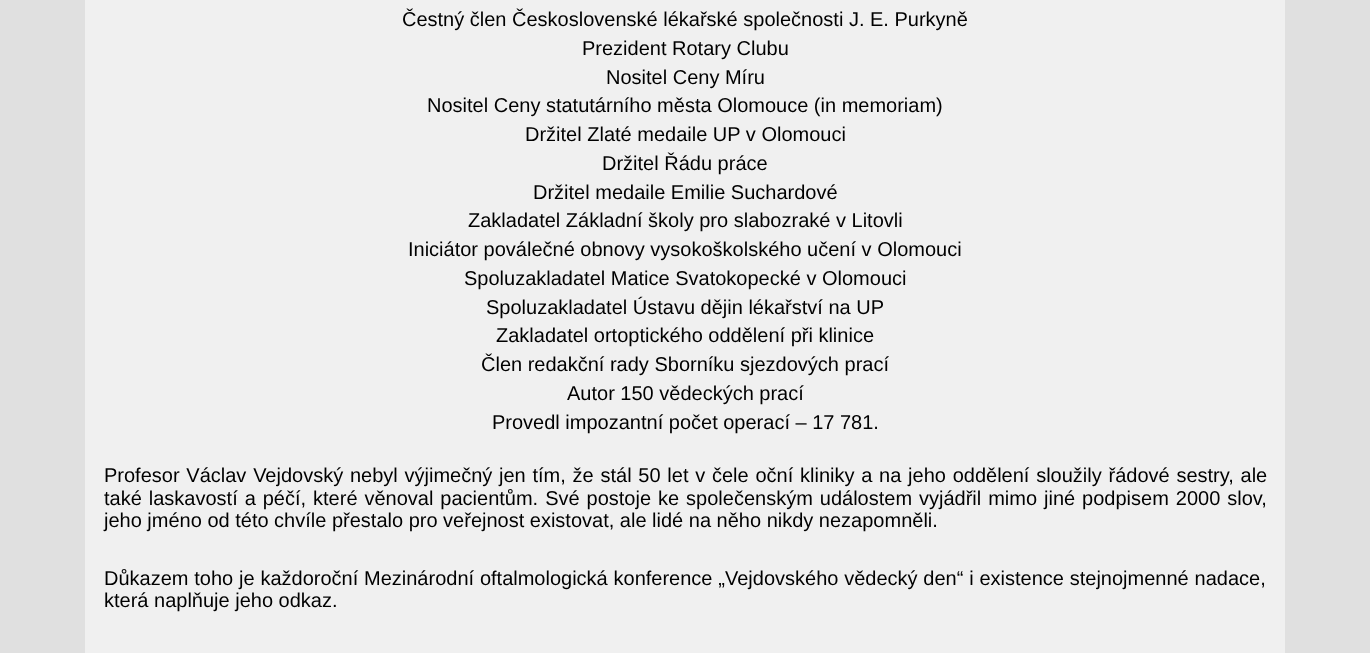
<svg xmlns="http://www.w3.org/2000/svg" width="1370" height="653">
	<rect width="100%" height="100%" fill="#E0E0E0" />
	<rect x="85" y="0" width="1200" height="653" fill="#F0F0F0" />
	<g font-family="Liberation Sans" font-size="20" fill="#000000">
		<text x="402" y="26">Čestný člen Československé lékařské společnosti J. E. Purkyně</text>
		<text x="582" y="55">Prezident Rotary Clubu</text>
		<text x="606" y="84">Nositel Ceny Míru</text>
		<text x="427" y="112">Nositel Ceny statutárního města Olomouce (in memoriam)</text>
		<text x="525" y="141">Držitel Zlaté medaile UP v Olomouci</text>
		<text x="602" y="170">Držitel Řádu práce</text>
		<text x="533" y="199">Držitel medaile Emilie Suchardové</text>
		<text x="468" y="227">Zakladatel Základní školy pro slabozraké v Litovli</text>
		<text x="408" y="256">Iniciátor poválečné obnovy vysokoškolského učení v Olomouci</text>
		<text x="464" y="285">Spoluzakladatel Matice Svatokopecké v Olomouci</text>
		<text x="486" y="314">Spoluzakladatel Ústavu dějin lékařství na UP</text>
		<text x="496" y="342">Zakladatel ortoptického oddělení při klinice</text>
		<text x="481" y="371">Člen redakční rady Sborníku sjezdových prací</text>
		<text x="567" y="400">Autor 150 vědeckých prací</text>
		<text x="492" y="429">Provedl impozantní počet operací – 17 781.</text>
		<text x="104" y="482" word-spacing="1.2">Profesor Václav Vejdovský nebyl výjimečný jen tím, že stál 50 let v čele oční kliniky a na jeho oddělení sloužily řádové sestry, ale</text>
		<text x="104" y="505" word-spacing="1.4">také laskavostí a péčí, které věnoval pacientům. Své postoje ke společenským událostem vyjádřil mimo jiné podpisem 2000 slov,</text>
		<text x="104" y="527">jeho jméno od této chvíle přestalo pro veřejnost existovat, ale lidé na něho nikdy nezapomněli.</text>
		<text x="104" y="585" word-spacing="0.25">Důkazem toho je každoroční Mezinárodní oftalmologická konference „Vejdovského vědecký den“ i existence stejnojmenné nadace,</text>
		<text x="104" y="607">která naplňuje jeho odkaz.</text>
	</g>
</svg>
